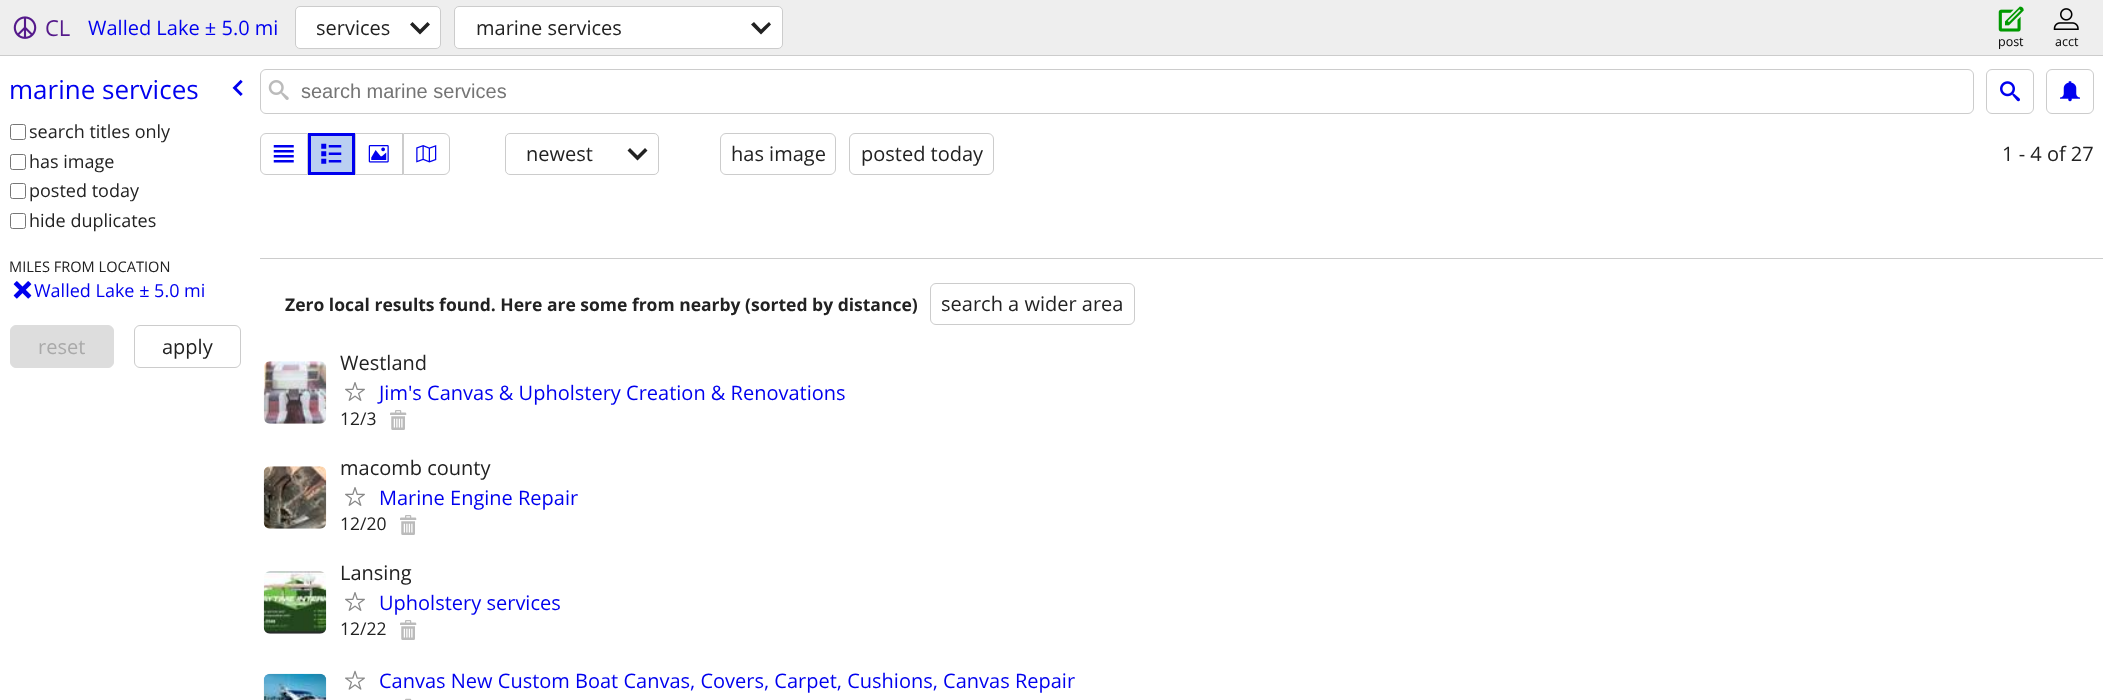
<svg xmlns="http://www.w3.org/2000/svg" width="2103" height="700">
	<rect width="100%" height="100%" fill="#FFFFFF" />
	<rect x="0" y="0" width="2103" height="55" fill="#EEEEEE" />
	<rect x="0" y="55" width="2103" height="1" fill="#CCCCCC" />
	<image x="13" y="16" width="24" height="23" href="assets/img1.png" />
	<text x="45" y="36" font-family="Open Sans" font-size="22" fill="#551A8B">CL</text>
	<text x="88" y="35" font-family="Open Sans" font-size="20" fill="#0000EE">Walled Lake ± 5.0 mi</text>
	<rect x="295.5" y="6.5" width="145" height="42" rx="4.5" fill="#FFFFFF" stroke="#CCCCCC" />
	<text x="316" y="35" font-family="Open Sans" font-size="20" fill="#222222">services</text>
	<path d="M430 24.5L427.5 22L420 29.5L412.5 22L410 24.5L420 34.5Z" fill="#222222" />
	<rect x="454.5" y="6.5" width="328" height="42" rx="4.5" fill="#FFFFFF" stroke="#CCCCCC" />
	<text x="476" y="35" font-family="Open Sans" font-size="20" fill="#222222">marine services</text>
	<path d="M771 24.5L769 22L761 29.5L754 22L751 24.5L761 34.5Z" fill="#222222" />
	<image x="1998" y="6" width="26" height="26" href="assets/img2.png" />
	<text x="1998" y="46" font-family="Open Sans" font-size="12.5" fill="#000000">post</text>
	<image x="2053" y="8" width="26" height="22" href="assets/img3.png" />
	<text x="2055" y="46" font-family="Open Sans" font-size="12.5" fill="#000000">acct</text>
	<text x="9" y="99" font-family="Open Sans" font-size="26" fill="#0000EE">marine services</text>
	<image x="232" y="79" width="11" height="17" href="assets/img4.png" />
	<rect x="10.5" y="124.5" width="15" height="15" rx="2" fill="none" stroke="#767676" />
	<text x="29" y="138" font-family="Open Sans" font-size="18" fill="#222222">search titles only</text>
	<rect x="10.5" y="154.5" width="15" height="15" rx="2" fill="none" stroke="#767676" />
	<text x="29" y="168" font-family="Open Sans" font-size="18" fill="#222222">has image</text>
	<rect x="10.5" y="183.5" width="15" height="15" rx="2" fill="none" stroke="#767676" />
	<text x="29" y="197" font-family="Open Sans" font-size="18" fill="#222222">posted today</text>
	<rect x="10.5" y="213.5" width="15" height="15" rx="2" fill="none" stroke="#767676" />
	<text x="29" y="227" font-family="Open Sans" font-size="18" fill="#222222">hide duplicates</text>
	<text x="9" y="272" font-family="Open Sans" font-size="14.6" fill="#222222">MILES FROM LOCATION</text>
	<image x="13" y="281" width="19" height="18" href="assets/img5.png" />
	<text x="34" y="297" font-family="Open Sans" font-size="18" fill="#0000EE">Walled Lake ± 5.0 mi</text>
	<rect x="10.5" y="325.5" width="103" height="42" rx="5.5" fill="#DDDDDD" stroke="#DDDDDD" />
	<text x="38" y="354" font-family="Open Sans" font-size="20" fill="#A9A9A9">reset</text>
	<rect x="134.5" y="325.5" width="106" height="42" rx="5.5" fill="none" stroke="#CCCCCC" />
	<text x="162" y="354" font-family="Open Sans" font-size="20" fill="#222222">apply</text>
	<rect x="260.5" y="69.5" width="1713" height="44" rx="5.5" fill="none" stroke="#CCCCCC" />
	<image x="268" y="80" width="21" height="20" href="assets/img6.png" />
	<text x="301" y="98" font-family="Liberation Sans" font-size="20" fill="#757575">search marine services</text>
	<rect x="1986.5" y="69.5" width="47" height="44" rx="5.5" fill="none" stroke="#CCCCCC" />
	<image x="2000" y="81" width="20" height="21" href="assets/img7.png" />
	<rect x="2046.5" y="69.5" width="47" height="44" rx="5.5" fill="none" stroke="#CCCCCC" />
	<image x="2060" y="81" width="20" height="21" href="assets/img8.png" />
	<path d="M266 133.5H307.5V174.5H266C263 174.5 260.5 172 260.5 169V139C260.5 136 263 133.5 266 133.5Z" fill="none" stroke="#CCCCCC" />
	<image x="273" y="145" width="21" height="18" href="assets/img9.png" />
	<rect x="309.5" y="134.5" width="44" height="39" fill="#BACFF2" stroke="#0000EE" stroke-width="3" />
	<image x="321" y="143" width="21" height="21" href="assets/img10.png" />
	<rect x="355.5" y="133.5" width="47" height="41" fill="none" stroke="#CCCCCC" />
	<image x="368" y="145" width="21" height="18" href="assets/img11.png" />
	<path d="M403.5 133.5H444C447 133.5 449.5 136 449.5 139V169C449.5 172 447 174.5 444 174.5H403.5Z" fill="none" stroke="#CCCCCC" />
	<image x="416" y="145" width="21" height="18" href="assets/img12.png" />
	<rect x="505.5" y="133.5" width="153" height="41" rx="4.5" fill="none" stroke="#CCCCCC" />
	<text x="526" y="161" font-family="Open Sans" font-size="20" fill="#222222">newest</text>
	<path d="M647.5 150.5L645 148L637.5 155.5L630 148L627.5 150.5L637.5 160.5Z" fill="#222222" />
	<rect x="720.5" y="133.5" width="115" height="41" rx="5.5" fill="none" stroke="#CCCCCC" />
	<text x="731" y="161" font-family="Open Sans" font-size="20" fill="#222222">has image</text>
	<rect x="849.5" y="133.5" width="144" height="41" rx="5.5" fill="none" stroke="#CCCCCC" />
	<g font-family="Open Sans" font-size="20" fill="#222222">
		<text x="861" y="161">posted today</text>
		<text x="2002" y="161">1 - 4 of 27</text>
	</g>
	<rect x="260" y="258" width="1843" height="1" fill="#CCCCCC" />
	<text x="285" y="311" font-family="Open Sans" font-size="17.5" font-weight="700" fill="#222222">Zero local results found. Here are some from nearby (sorted by distance)</text>
	<rect x="930.5" y="283.5" width="204" height="41" rx="5.5" fill="none" stroke="#CCCCCC" />
	<text x="941" y="311" font-family="Open Sans" font-size="20" fill="#222222">search a wider area</text>
	<image x="263" y="361" width="64" height="63" href="assets/img13.png" />
	<text x="340" y="370" font-family="Open Sans" font-size="20" fill="#222222">Westland</text>
	<image x="345" y="382" width="20" height="19" href="assets/img14.png" />
	<text x="379" y="400" font-family="Open Sans" font-size="20" fill="#0000EE">Jim's Canvas &amp; Upholstery Creation &amp; Renovations</text>
	<text x="340" y="425" font-family="Open Sans" font-size="17.5" fill="#222222">12/3</text>
	<image x="390" y="410" width="17" height="20" href="assets/img15.png" />
	<image x="263" y="466" width="64" height="63" href="assets/img16.png" />
	<text x="340" y="475" font-family="Open Sans" font-size="20" fill="#222222">macomb county</text>
	<image x="345" y="487" width="20" height="19" href="assets/img14.png" />
	<text x="379" y="505" font-family="Open Sans" font-size="20" fill="#0000EE">Marine Engine Repair</text>
	<text x="340" y="530" font-family="Open Sans" font-size="17.5" fill="#222222">12/20</text>
	<image x="400" y="515" width="17" height="20" href="assets/img15.png" />
	<image x="263" y="571" width="64" height="63" href="assets/img17.png" />
	<text x="340" y="580" font-family="Open Sans" font-size="20" fill="#222222">Lansing</text>
	<image x="345" y="592" width="20" height="19" href="assets/img14.png" />
	<text x="379" y="610" font-family="Open Sans" font-size="20" fill="#0000EE">Upholstery services</text>
	<text x="340" y="635" font-family="Open Sans" font-size="17.5" fill="#222222">12/22</text>
	<image x="400" y="620" width="17" height="20" href="assets/img15.png" />
	<image x="263" y="673" width="64" height="27" href="assets/img18.png" />
	<image x="345" y="670" width="20" height="20" href="assets/img19.png" />
	<text x="379" y="688" font-family="Open Sans" font-size="20" fill="#0000EE">Canvas New Custom Boat Canvas, Covers, Carpet, Cushions, Canvas Repair</text>
	<image x="405" y="698" width="7" height="2" href="assets/img20.png" />
</svg>
